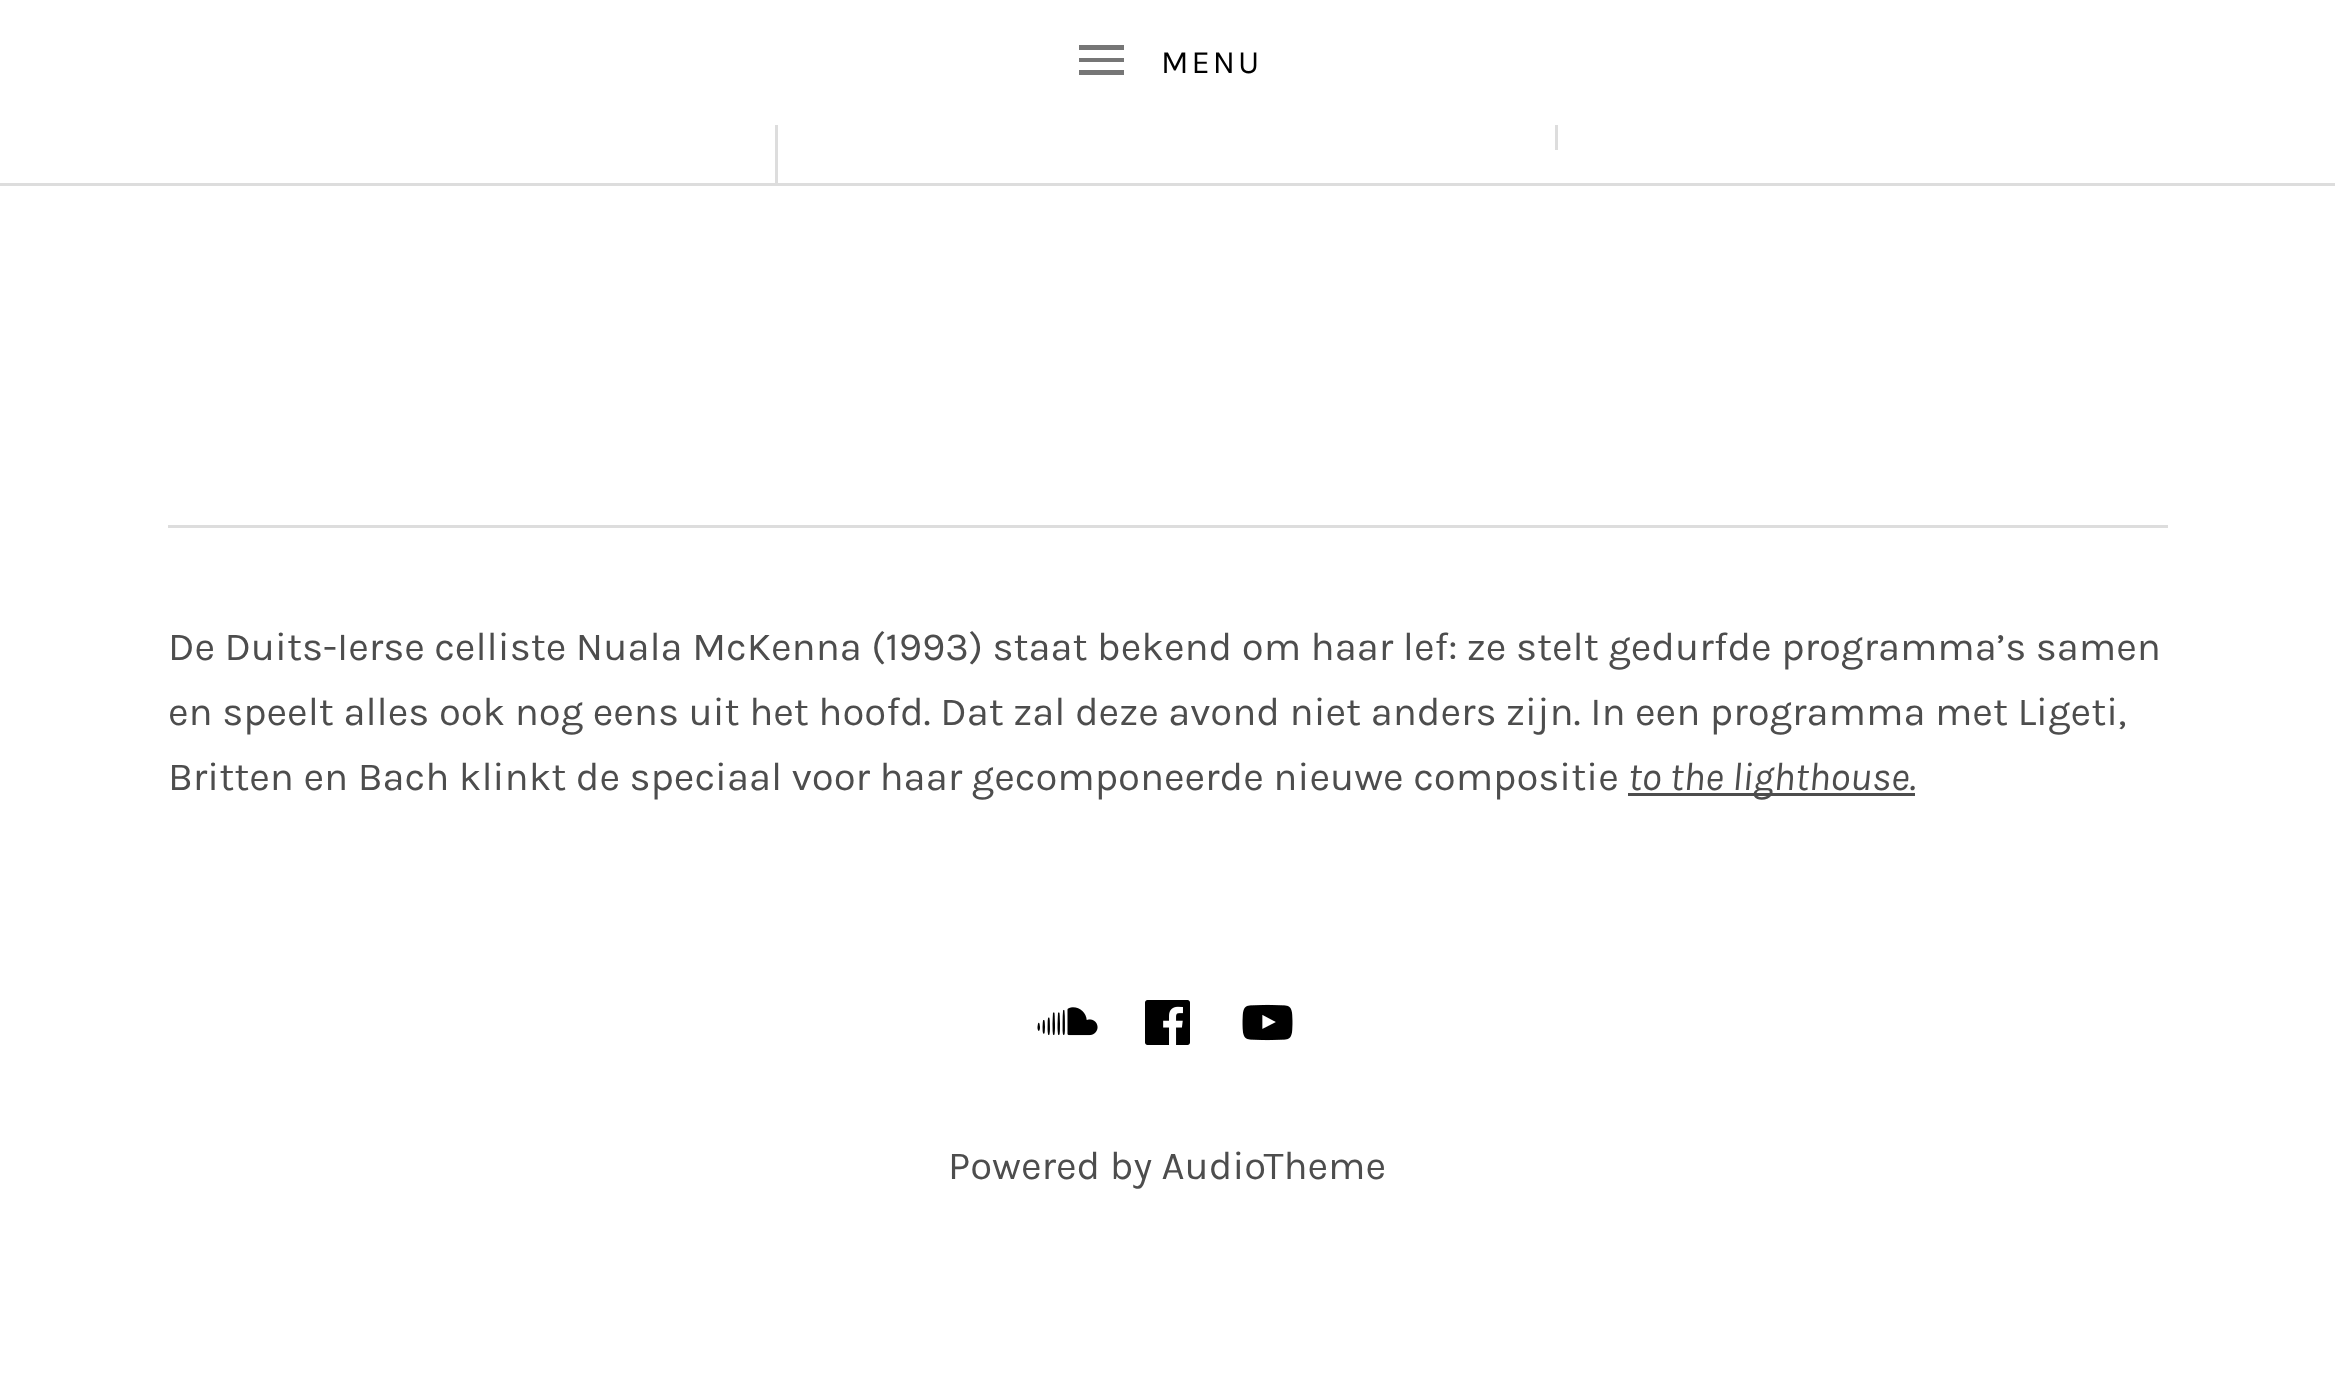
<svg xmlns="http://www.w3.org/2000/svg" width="2335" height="1384">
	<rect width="100%" height="100%" fill="#FFFFFF" />
	<path d="M1079 75H1124V70H1079ZM1079 62H1124V58H1079ZM1079 45V50H1124V45Z" fill="#767676" />
	<text x="1161" y="73" font-family="Karla" font-size="32.5" letter-spacing="3" fill="#000000">MENU</text>
	<rect x="0" y="183" width="2335" height="3" fill="#DDDDDD" />
	<rect x="775" y="125" width="3" height="58" fill="#DDDDDD" />
	<rect x="1555" y="125" width="3" height="25" fill="#DDDDDD" />
	<rect x="168" y="525" width="2000" height="3" fill="#DDDDDD" />
	<g font-family="Karla" font-size="40" fill="#4D4D4D">
		<text x="168" y="660">De Duits-Ierse celliste Nuala McKenna (1993) staat bekend om haar lef: ze stelt gedurfde programma’s samen</text>
		<text x="168" y="725">en speelt alles ook nog eens uit het hoofd. Dat zal deze avond niet anders zijn. In een programma met Ligeti,</text>
		<text x="168" y="790">Britten en Bach klinkt de speciaal voor haar gecomponeerde nieuwe compositie</text>
	</g>
	<rect x="1628" y="793" width="287" height="3" fill="#4D4D4D" />
	<text x="1628" y="790" font-family="Karla" font-size="40" font-style="italic" fill="#4D4D4D">to the lighthouse.</text>
	<image x="1037" y="1007" width="61" height="29" href="assets/img1.png" />
	<image x="1145" y="1000" width="45" height="45" href="assets/img2.png" />
	<image x="1242" y="1004" width="51" height="37" href="assets/img3.png" />
	<text x="948" y="1179" font-family="Karla" font-size="40" fill="#4D4D4D">Powered by AudioTheme</text>
</svg>
